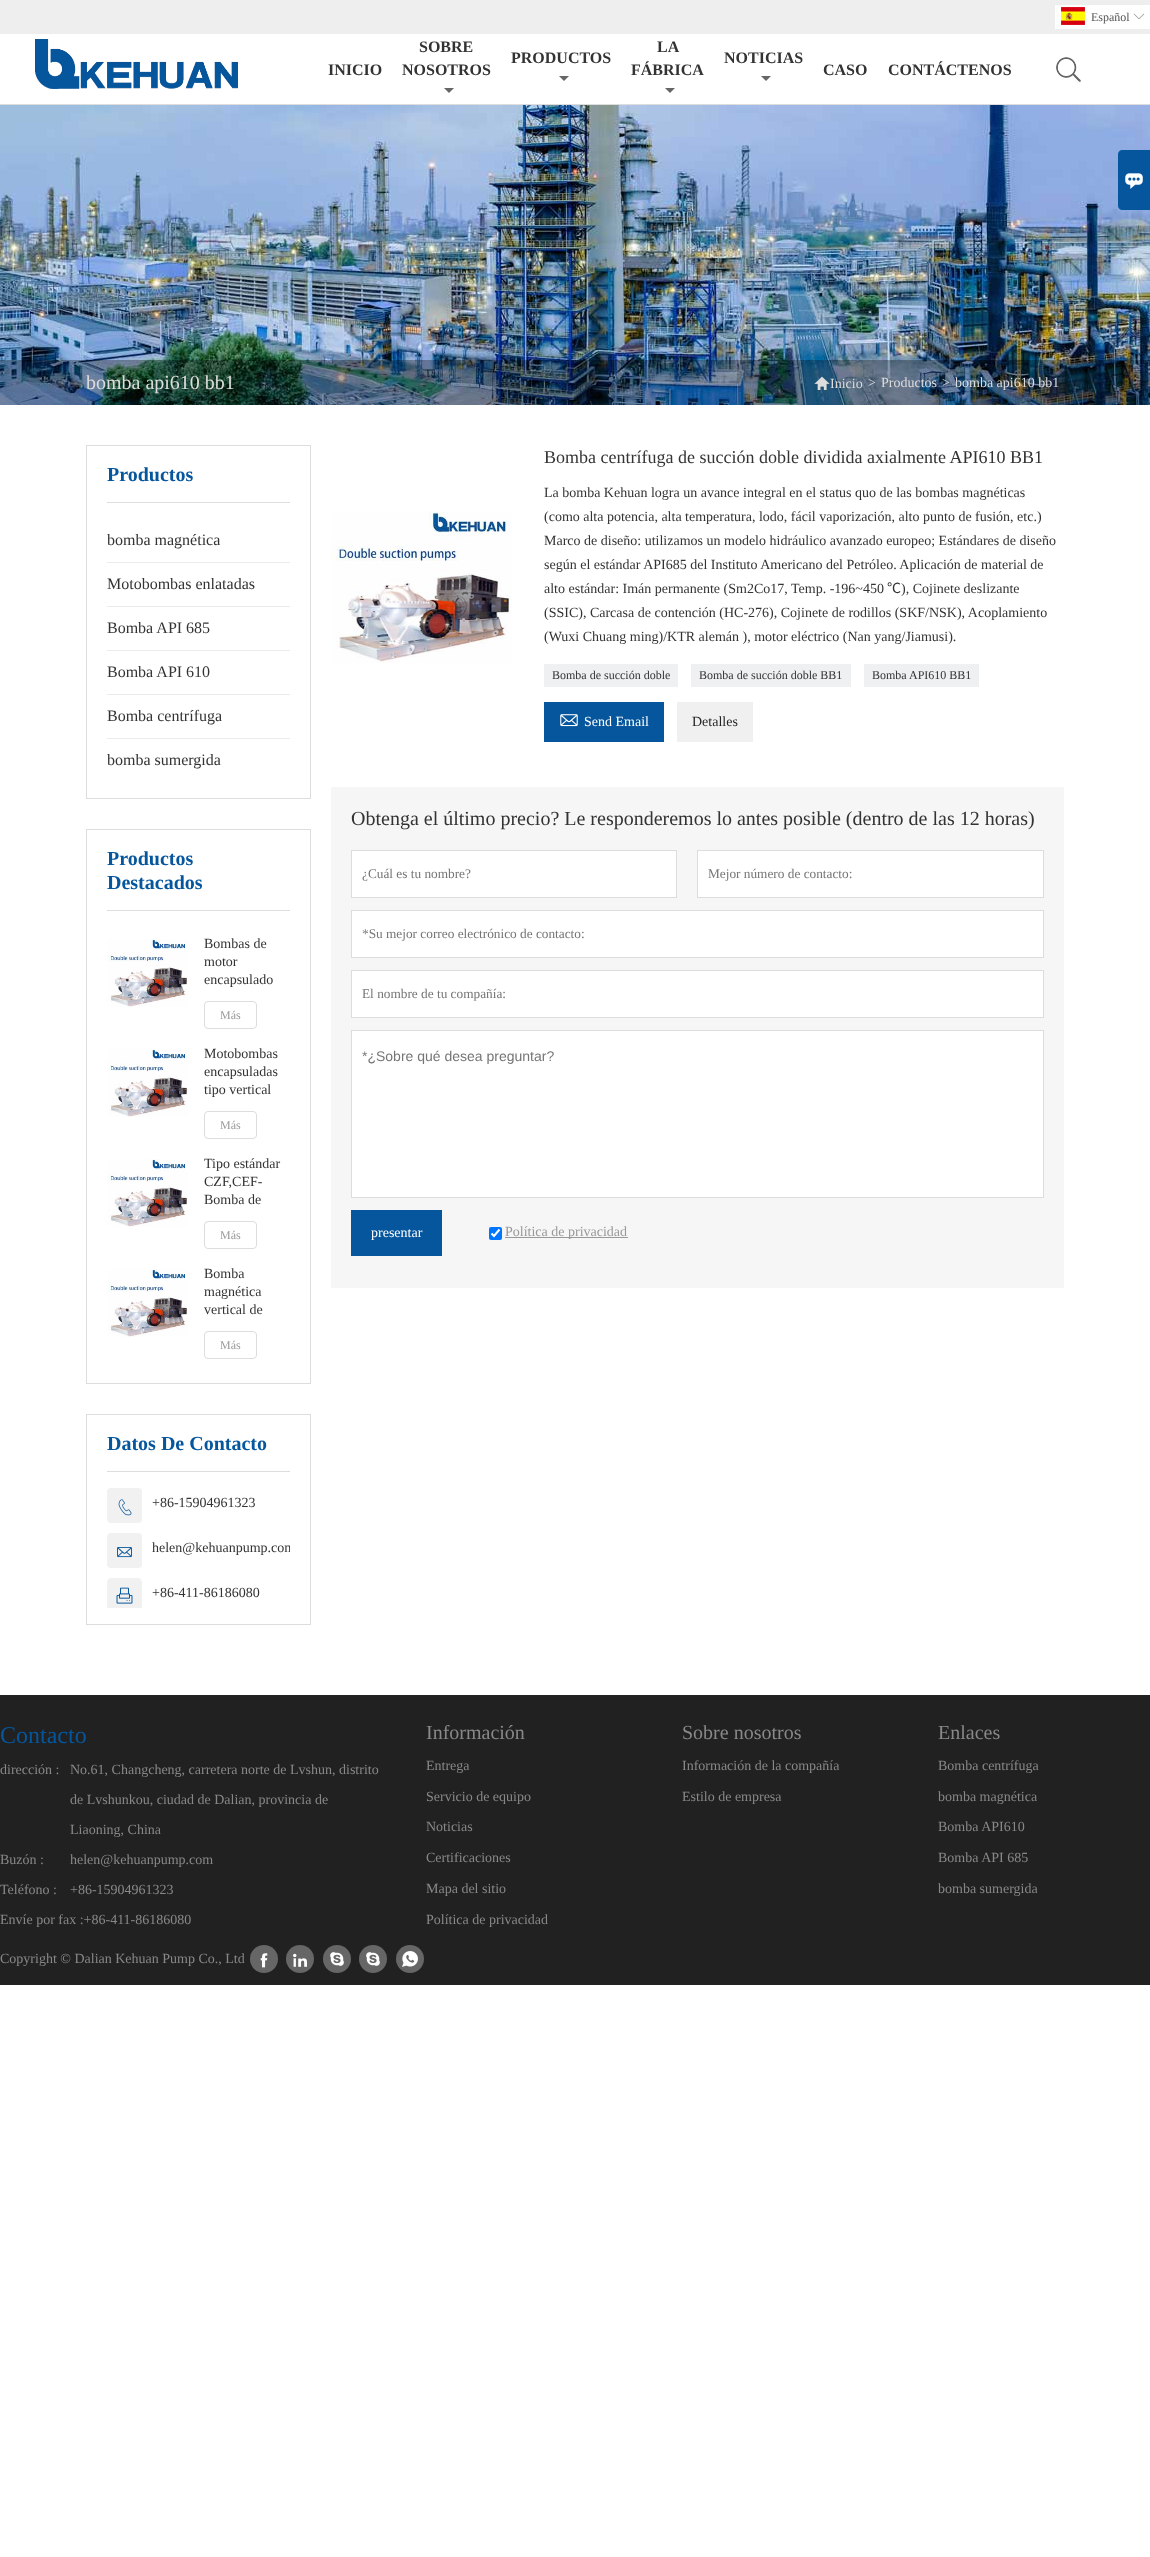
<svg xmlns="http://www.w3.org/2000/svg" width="1150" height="2557">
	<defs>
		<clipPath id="clip1"><rect x="107" y="1488" width="183" height="120" /></clipPath>
	</defs>
	<rect width="100%" height="100%" fill="#FFFFFF" />
	<rect x="0" y="0" width="1150" height="34" fill="#EEEEEE" />
	<rect x="1055" y="5" width="95" height="24" fill="#FFFFFF" />
	<image x="1061" y="7" width="24" height="18" href="assets/img1.png" />
	<text x="1091" y="21" font-family="Liberation Serif" font-size="12" fill="#555555">Español</text>
	<image x="1133" y="13" width="12" height="7" href="assets/img2.png" />
	<rect x="0" y="104" width="1150" height="1" fill="#DDDDDD" />
	<image x="35" y="39" width="203" height="50" href="assets/img3.png" />
	<g font-family="Liberation Serif" font-size="16" font-weight="700" fill="#333333">
		<text x="419" y="52">SOBRE</text>
		<text x="402" y="75">NOSOTROS</text>
	</g>
	<path d="M444 88H454L449 93Z" fill="#666666" />
	<text x="511" y="63" font-family="Liberation Serif" font-size="16" font-weight="700" fill="#333333">PRODUCTOS</text>
	<path d="M559 76H569L564 81Z" fill="#666666" />
	<g font-family="Liberation Serif" font-size="16" font-weight="700" fill="#333333">
		<text x="657" y="52">LA</text>
		<text x="631" y="75">FÁBRICA</text>
	</g>
	<path d="M665 88H675L670 93Z" fill="#666666" />
	<text x="724" y="63" font-family="Liberation Serif" font-size="16" font-weight="700" fill="#333333">NOTICIAS</text>
	<path d="M761 76H771L766 81Z" fill="#666666" />
	<g font-family="Liberation Serif" font-size="16" font-weight="700" fill="#333333">
		<text x="328" y="75">INICIO</text>
		<text x="823" y="75">CASO</text>
		<text x="888" y="75">CONTÁCTENOS</text>
	</g>
	<image x="1056" y="57" width="25" height="25" href="assets/img4.png" />
	<image x="0" y="105" width="1150" height="300" href="assets/img6.png" />
	<path d="M1122 150H1150V210H1122C1120 210 1118 208 1118 206V154C1118 152 1120 150 1122 150Z" fill="#06569D" />
	<image x="1125" y="173" width="18" height="16" href="assets/img5.png" />
	<rect x="0" y="360" width="1150" height="45" fill="#000000" fill-opacity="0.3" />
	<text x="86" y="389" font-family="Liberation Serif" font-size="20" fill="#DDDDDD">bomba api610 bb1</text>
	<image x="814" y="376" width="16" height="14" href="assets/img7.png" />
	<g font-family="Liberation Serif" font-size="14" fill="#DDDDDD">
		<text x="830" y="388">Inicio</text>
		<text x="868" y="387">&gt;</text>
		<text x="881" y="387">Productos</text>
		<text x="942" y="387">&gt;</text>
		<text x="955" y="387">bomba api610 bb1</text>
	</g>
	<rect x="86.5" y="445.5" width="224" height="353" fill="none" stroke="#DDDDDD" />
	<rect x="107" y="502" width="183" height="1" fill="#DDDDDD" />
	<text x="107" y="481" font-family="Liberation Serif" font-size="20" font-weight="700" fill="#06569D">Productos</text>
	<rect x="107" y="562" width="183" height="1" fill="#EBEBEB" />
	<text x="107" y="545" font-family="Liberation Serif" font-size="16" fill="#333333">bomba magnética</text>
	<rect x="107" y="606" width="183" height="1" fill="#EBEBEB" />
	<text x="107" y="589" font-family="Liberation Serif" font-size="16" fill="#333333">Motobombas enlatadas</text>
	<rect x="107" y="650" width="183" height="1" fill="#EBEBEB" />
	<text x="107" y="633" font-family="Liberation Serif" font-size="16" fill="#333333">Bomba API 685</text>
	<rect x="107" y="694" width="183" height="1" fill="#EBEBEB" />
	<text x="107" y="677" font-family="Liberation Serif" font-size="16" fill="#333333">Bomba API 610</text>
	<rect x="107" y="738" width="183" height="1" fill="#EBEBEB" />
	<g font-family="Liberation Serif" font-size="16" fill="#333333">
		<text x="107" y="721">Bomba centrífuga</text>
		<text x="107" y="765">bomba sumergida</text>
	</g>
	<rect x="86.5" y="829.5" width="224" height="554" fill="none" stroke="#DDDDDD" />
	<rect x="107" y="910" width="183" height="1" fill="#DDDDDD" />
	<g font-family="Liberation Serif" font-size="20" font-weight="700" fill="#06569D">
		<text x="107" y="865">Productos</text>
		<text x="107" y="889">Destacados</text>
	</g>
	<image x="107" y="939" width="81" height="68" href="assets/img8.png" />
	<g font-family="Liberation Serif" font-size="14" fill="#333333">
		<text x="204" y="948">Bombas de</text>
		<text x="204" y="966">motor</text>
		<text x="204" y="984">encapsulado</text>
	</g>
	<rect x="204.5" y="1001.5" width="52" height="27" rx="3.5" fill="none" stroke="#DDDDDD" />
	<text x="220" y="1019" font-family="Liberation Serif" font-size="12" fill="#999999">Más</text>
	<image x="107" y="1049" width="81" height="68" href="assets/img9.png" />
	<g font-family="Liberation Serif" font-size="14" fill="#333333">
		<text x="204" y="1058">Motobombas</text>
		<text x="204" y="1076">encapsuladas</text>
		<text x="204" y="1094">tipo vertical</text>
	</g>
	<rect x="204.5" y="1111.5" width="52" height="27" rx="3.5" fill="none" stroke="#DDDDDD" />
	<text x="220" y="1129" font-family="Liberation Serif" font-size="12" fill="#999999">Más</text>
	<image x="107" y="1159" width="81" height="68" href="assets/img8.png" />
	<g font-family="Liberation Serif" font-size="14" fill="#333333">
		<text x="204" y="1168">Tipo estándar</text>
		<text x="204" y="1186">CZF,CEF-</text>
		<text x="204" y="1204">Bomba de</text>
	</g>
	<rect x="204.5" y="1221.5" width="52" height="27" rx="3.5" fill="none" stroke="#DDDDDD" />
	<text x="220" y="1239" font-family="Liberation Serif" font-size="12" fill="#999999">Más</text>
	<image x="107" y="1269" width="81" height="68" href="assets/img10.png" />
	<g font-family="Liberation Serif" font-size="14" fill="#333333">
		<text x="204" y="1278">Bomba</text>
		<text x="204" y="1296">magnética</text>
		<text x="204" y="1314">vertical de</text>
	</g>
	<rect x="204.5" y="1331.5" width="52" height="27" rx="3.5" fill="none" stroke="#DDDDDD" />
	<text x="220" y="1349" font-family="Liberation Serif" font-size="12" fill="#999999">Más</text>
	<rect x="86.5" y="1414.5" width="224" height="210" fill="none" stroke="#DDDDDD" />
	<rect x="107" y="1471" width="183" height="1" fill="#DDDDDD" />
	<text x="107" y="1450" font-family="Liberation Serif" font-size="20" font-weight="700" fill="#06569D">Datos De Contacto</text>
	<rect x="107" y="1488" width="35" height="35" rx="4" fill="#F1F1F1" />
	<image x="118" y="1499" width="14" height="17" href="assets/img11.png" />
	<text x="152" y="1507" font-family="Liberation Serif" font-size="14" fill="#333333">+86-15904961323</text>
	<rect x="107" y="1533" width="35" height="35" rx="4" fill="#F1F1F1" />
	<image x="117" y="1547" width="15" height="11" href="assets/img12.png" />
	<g clip-path="url(#clip1)">
		<text x="152" y="1552" font-family="Liberation Serif" font-size="14" fill="#333333">helen@kehuanpump.com</text>
	</g>
	<path d="M111 1578H138C140 1578 142 1580 142 1582V1608H107V1582C107 1580 109 1578 111 1578Z" fill="#F1F1F1" />
	<image x="116" y="1587" width="17" height="17" href="assets/img13.png" />
	<text x="152" y="1597" font-family="Liberation Serif" font-size="14" fill="#333333">+86-411-86186080</text>
	<image x="331" y="511" width="181" height="152" href="assets/img14.png" />
	<text x="544" y="463" font-family="Liberation Serif" font-size="18" fill="#333333">Bomba centrífuga de succión doble dividida axialmente API610 BB1</text>
	<g font-family="Liberation Serif" font-size="14" fill="#333333">
		<text x="544" y="497">La bomba Kehuan logra un avance integral en el status quo de las bombas magnéticas</text>
		<text x="544" y="521">(como alta potencia, alta temperatura, lodo, fácil vaporización, alto punto de fusión, etc.)</text>
		<text x="544" y="545">Marco de diseño: utilizamos un modelo hidráulico avanzado europeo; Estándares de diseño</text>
		<text x="544" y="569">según el estándar API685 del Instituto Americano del Petróleo. Aplicación de material de</text>
		<text x="544" y="593">alto estándar: Imán permanente (Sm2Co17, Temp. -196~450</text>
	</g>
	<text x="887" y="593" font-family="Noto Sans CJK SC" font-size="14" fill="#333333">℃</text>
	<g font-family="Liberation Serif" font-size="14" fill="#333333">
		<text x="901" y="593">), Cojinete deslizante</text>
		<text x="544" y="617">(SSIC), Carcasa de contención (HC-276), Cojinete de rodillos (SKF/NSK), Acoplamiento</text>
		<text x="544" y="641">(Wuxi Chuang ming)/KTR alemán ), motor eléctrico (Nan yang/Jiamusi).</text>
	</g>
	<rect x="544" y="664" width="134" height="23" fill="#EEF0F1" />
	<text x="552" y="679" font-family="Liberation Serif" font-size="12" fill="#333333">Bomba de succión doble</text>
	<rect x="691" y="664" width="160" height="23" fill="#EEF0F1" />
	<text x="699" y="679" font-family="Liberation Serif" font-size="12" fill="#333333">Bomba de succión doble BB1</text>
	<rect x="864" y="664" width="115" height="23" fill="#EEF0F1" />
	<text x="872" y="679" font-family="Liberation Serif" font-size="12" fill="#333333">Bomba API610 BB1</text>
	<rect x="544" y="702" width="120" height="40" fill="#06569D" />
	<image x="560" y="714" width="18" height="13" href="assets/img15.png" />
	<text x="584" y="726" font-family="Liberation Serif" font-size="14" fill="#FFFFFF">Send Email</text>
	<rect x="677" y="702" width="76" height="40" fill="#F0F0F0" />
	<text x="692" y="726" font-family="Liberation Serif" font-size="14" fill="#242424">Detalles</text>
	<rect x="331" y="787" width="733" height="501" fill="#F6F6F6" />
	<text x="351" y="825" font-family="Liberation Serif" font-size="20" fill="#333333">Obtenga el último precio? Le responderemos lo antes posible (dentro de las 12 horas)</text>
	<rect x="351.5" y="850.5" width="325" height="47" fill="#FFFFFF" stroke="#DDDDDD" />
	<text x="362" y="878" font-family="Liberation Serif" font-size="13.3" fill="#757575">¿Cuál es tu nombre?</text>
	<rect x="697.5" y="850.5" width="346" height="47" fill="#FFFFFF" stroke="#DDDDDD" />
	<text x="708" y="878" font-family="Liberation Serif" font-size="13.3" fill="#757575">Mejor número de contacto:</text>
	<rect x="351.5" y="910.5" width="692" height="47" fill="#FFFFFF" stroke="#DDDDDD" />
	<text x="362" y="938" font-family="Liberation Serif" font-size="13.3" fill="#757575">*Su mejor correo electrónico de contacto:</text>
	<rect x="351.5" y="970.5" width="692" height="47" fill="#FFFFFF" stroke="#DDDDDD" />
	<text x="362" y="998" font-family="Liberation Serif" font-size="13.3" fill="#757575">El nombre de tu compañía:</text>
	<rect x="351.5" y="1030.5" width="692" height="167" fill="#FFFFFF" stroke="#DDDDDD" />
	<text x="362" y="1061" font-family="Liberation Sans" font-size="14" fill="#757575">*¿Sobre qué desea preguntar?</text>
	<rect x="351" y="1210" width="91" height="46" fill="#06569D" />
	<text x="371" y="1237" font-family="Liberation Serif" font-size="14" fill="#FFFFFF">presentar</text>
	<rect x="489" y="1227" width="13" height="13" rx="2" fill="#0075FF" />
	<path d="M491.5 1233.5L494 1236L499.5 1229.5" fill="none" stroke="#FFFFFF" stroke-width="2.1" />
	<rect x="505" y="1237" width="123" height="1" fill="#999999" />
	<text x="505" y="1236" font-family="Liberation Serif" font-size="14" fill="#999999">Política de privacidad</text>
	<rect x="0" y="1695" width="1150" height="290" fill="#212121" />
	<text x="0" y="1743" font-family="Liberation Serif" font-size="24" fill="#06569D">Contacto</text>
	<g font-family="Liberation Serif" font-size="14" fill="#888888">
		<text x="0" y="1774">dirección :</text>
		<text x="70" y="1774">No.61, Changcheng, carretera norte de Lvshun, distrito</text>
		<text x="70" y="1804">de Lvshunkou, ciudad de Dalian, provincia de</text>
		<text x="70" y="1834">Liaoning, China</text>
		<text x="0" y="1864">Buzón :</text>
		<text x="70" y="1864">helen@kehuanpump.com</text>
		<text x="0" y="1894">Teléfono :</text>
		<text x="70" y="1894">+86-15904961323</text>
		<text x="0" y="1924">Envíe por fax :+86-411-86186080</text>
	</g>
	<text x="426" y="1739" font-family="Liberation Serif" font-size="20" fill="#888888">Información</text>
	<g font-family="Liberation Serif" font-size="14" fill="#888888">
		<text x="426" y="1770">Entrega</text>
		<text x="426" y="1801">Servicio de equipo</text>
		<text x="426" y="1831">Noticias</text>
		<text x="426" y="1862">Certificaciones</text>
		<text x="426" y="1893">Mapa del sitio</text>
		<text x="426" y="1924">Política de privacidad</text>
	</g>
	<text x="682" y="1739" font-family="Liberation Serif" font-size="20" fill="#888888">Sobre nosotros</text>
	<g font-family="Liberation Serif" font-size="14" fill="#888888">
		<text x="682" y="1770">Información de la compañía</text>
		<text x="682" y="1801">Estilo de empresa</text>
	</g>
	<text x="938" y="1739" font-family="Liberation Serif" font-size="20" fill="#888888">Enlaces</text>
	<g font-family="Liberation Serif" font-size="14" fill="#888888">
		<text x="938" y="1770">Bomba centrífuga</text>
		<text x="938" y="1801">bomba magnética</text>
		<text x="938" y="1831">Bomba API610</text>
		<text x="938" y="1862">Bomba API 685</text>
		<text x="938" y="1893">bomba sumergida</text>
		<text x="0" y="1963">Copyright © Dalian Kehuan Pump Co., Ltd</text>
	</g>
	<circle cx="264" cy="1959" r="14" fill="#666666" />
	<image x="260" y="1953" width="8" height="15" href="assets/img16.png" />
	<circle cx="300" cy="1959" r="14" fill="#666666" />
	<image x="293" y="1953" width="14" height="14" href="assets/img17.png" />
	<circle cx="337" cy="1959" r="14" fill="#666666" />
	<image x="330" y="1952" width="14" height="14" href="assets/img18.png" />
	<circle cx="373" cy="1959" r="14" fill="#666666" />
	<image x="366" y="1952" width="14" height="14" href="assets/img18.png" />
	<circle cx="410" cy="1959" r="14" fill="#666666" />
	<image x="402" y="1951" width="16" height="16" href="assets/img19.png" />
</svg>
